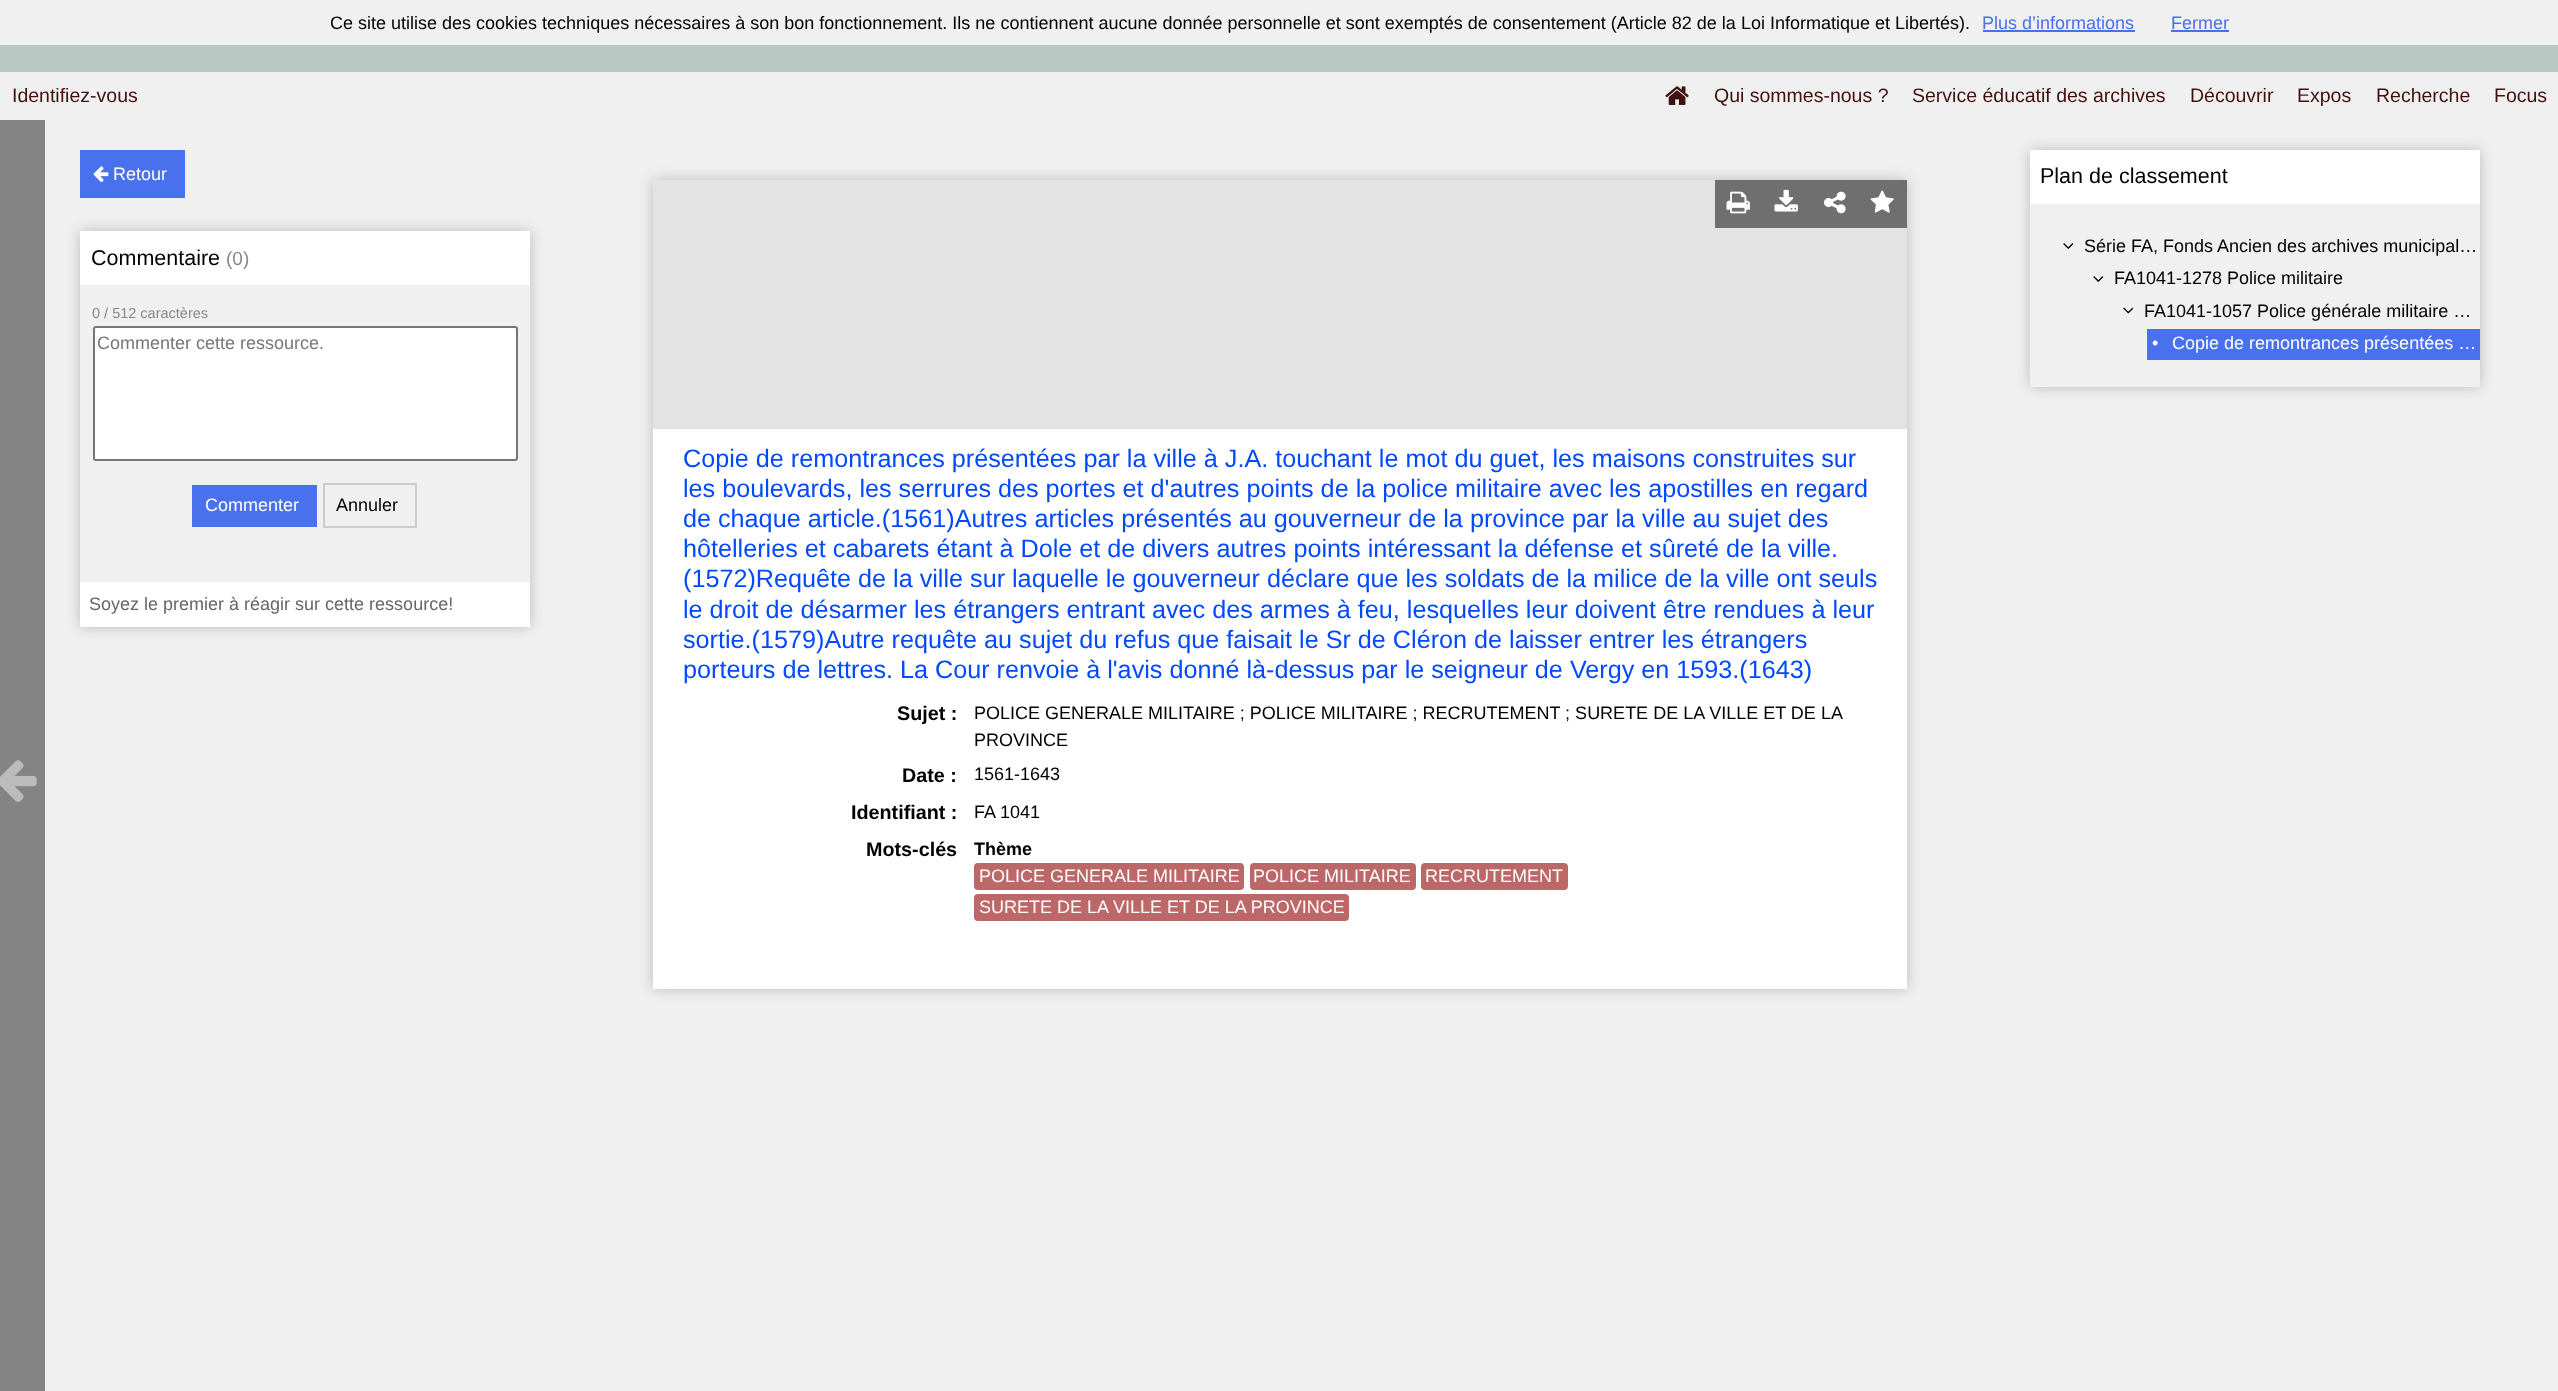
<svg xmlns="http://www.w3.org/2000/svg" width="2558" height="1391">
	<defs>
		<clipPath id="clip1"><path d="M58 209H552V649H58ZM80 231H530V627H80Z" clip-rule="evenodd" /></clipPath>
	</defs>
	<rect width="100%" height="100%" fill="#F0F0F0" />
	<text x="330" y="29" font-family="Liberation Sans" font-size="18" fill="#000000">Ce site utilise des cookies techniques nécessaires à son bon fonctionnement. Ils ne contiennent aucune donnée personnelle et sont exemptés de consentement (Article 82 de la Loi Informatique et Libertés).</text>
	<text x="1982" y="29" font-family="Liberation Sans" font-size="18" fill="#4970EC">Plus d’informations</text>
	<rect x="1983" y="30" width="152" height="2" fill="#4970EC" />
	<text x="2171" y="29" font-family="Liberation Sans" font-size="18" fill="#4970EC">Fermer</text>
	<rect x="2171" y="30" width="58" height="2" fill="#4970EC" />
	<rect x="0" y="45" width="2558" height="27" fill="#B8C9C3" />
	<text x="12" y="102" font-family="Liberation Sans" font-size="19.5" fill="#421010">Identifiez-vous</text>
	<image x="1665" y="86" width="24" height="19" href="assets/img1.png" />
	<g font-family="Liberation Sans" font-size="19.5" fill="#421010">
		<text x="1714" y="102">Qui sommes-nous ?</text>
		<text x="1912" y="102">Service éducatif des archives</text>
		<text x="2190" y="102">Découvrir</text>
		<text x="2297" y="102">Expos</text>
		<text x="2376" y="102">Recherche</text>
		<text x="2494" y="102">Focus</text>
	</g>
	<rect x="0" y="120" width="45" height="1271" fill="#848484" />
	<image x="0" y="760" width="37" height="42" href="assets/img2.png" />
	<rect x="80" y="150" width="105" height="48" fill="#4A71ED" />
	<image x="93" y="166" width="16" height="16" href="assets/img3.png" />
	<text x="113" y="180" font-family="Liberation Sans" font-size="18" fill="#FFFFFF">Retour</text>
	<g clip-path="url(#clip1)">
		<rect x="80" y="231" width="450" height="396" fill="#BBBBBB" filter="blur(7px)" />
	</g>
	<rect x="80" y="231" width="450" height="54" fill="#FFFFFF" />
	<text x="91" y="265" font-family="Liberation Sans" font-size="21.5" fill="#000000">Commentaire</text>
	<text x="226" y="265" font-family="Liberation Sans" font-size="19" fill="#888888">(0)</text>
	<text x="92" y="318" font-family="Liberation Sans" font-size="14.5" fill="#888888">0 / 512 caractères</text>
	<rect x="94" y="327" width="423" height="133" rx="2" fill="#FFFFFF" stroke="#767676" stroke-width="2" />
	<text x="97" y="349" font-family="Liberation Sans" font-size="18" fill="#777777">Commenter cette ressource.</text>
	<rect x="192" y="485" width="125" height="42" fill="#4A71ED" />
	<text x="205" y="511" font-family="Liberation Sans" font-size="18" fill="#FFFFFF">Commenter</text>
	<rect x="324" y="484" width="92" height="43" fill="none" stroke="#CCCCCC" stroke-width="2" />
	<text x="336" y="511" font-family="Liberation Sans" font-size="18" fill="#000000">Annuler</text>
	<rect x="80" y="582" width="450" height="45" fill="#FFFFFF" />
	<text x="89" y="610" font-family="Liberation Sans" font-size="18" fill="#666666">Soyez le premier à réagir sur cette ressource!</text>
	<rect x="2030" y="150" width="450" height="237" fill="#BBBBBB" filter="blur(7px)" />
	<rect x="2030" y="150" width="450" height="54" fill="#FFFFFF" />
	<text x="2040" y="183" font-family="Liberation Sans" font-size="21.5" fill="#000000">Plan de classement</text>
	<rect x="2030" y="204" width="450" height="183" fill="#F0F0F0" />
	<image x="2063" y="243" width="11" height="6" href="assets/img4.png" />
	<text x="2084" y="252" font-family="Liberation Sans" font-size="18" fill="#000000">Série FA, Fonds Ancien des archives municipal…</text>
	<image x="2093" y="276" width="11" height="6" href="assets/img4.png" />
	<text x="2114" y="284" font-family="Liberation Sans" font-size="18" fill="#000000">FA1041-1278 Police militaire</text>
	<image x="2123" y="307" width="11" height="7" href="assets/img5.png" />
	<text x="2144" y="317" font-family="Liberation Sans" font-size="18" fill="#000000">FA1041-1057 Police générale militaire …</text>
	<rect x="2147" y="329" width="333" height="31" fill="#4A71ED" />
	<g font-family="Liberation Sans" font-size="18" fill="#FFFFFF">
		<text x="2152" y="349">•</text>
		<text x="2172" y="349">Copie de remontrances présentées …</text>
	</g>
	<rect x="653" y="180" width="1254" height="809" fill="#BBBBBB" filter="blur(7px)" />
	<rect x="653" y="429" width="1254" height="560" fill="#FFFFFF" />
	<rect x="653" y="180" width="1254" height="249" fill="#E3E3E3" />
	<rect x="1715" y="180" width="96" height="48" fill="#6F6F6F" />
	<image x="1726" y="191" width="24" height="23" href="assets/img6.png" />
	<rect x="1811" y="180" width="96" height="48" fill="#6F6F6F" />
	<image x="1870" y="190" width="24" height="23" href="assets/img7.png" />
	<image x="1774" y="189" width="24" height="23" href="assets/img8.png" />
	<image x="1824" y="191" width="22" height="23" href="assets/img9.png" />
	<g font-family="Liberation Sans" font-size="25.2" fill="#0049FF">
		<text x="683" y="467">Copie de remontrances présentées par la ville à J.A. touchant le mot du guet, les maisons construites sur</text>
		<text x="683" y="497">les boulevards, les serrures des portes et d'autres points de la police militaire avec les apostilles en regard</text>
		<text x="683" y="527">de chaque article.(1561)Autres articles présentés au gouverneur de la province par la ville au sujet des</text>
		<text x="683" y="557">hôtelleries et cabarets étant à Dole et de divers autres points intéressant la défense et sûreté de la ville.</text>
		<text x="683" y="587">(1572)Requête de la ville sur laquelle le gouverneur déclare que les soldats de la milice de la ville ont seuls</text>
		<text x="683" y="618">le droit de désarmer les étrangers entrant avec des armes à feu, lesquelles leur doivent être rendues à leur</text>
		<text x="683" y="648">sortie.(1579)Autre requête au sujet du refus que faisait le Sr de Cléron de laisser entrer les étrangers</text>
		<text x="683" y="678">porteurs de lettres. La Cour renvoie à l'avis donné là-dessus par le seigneur de Vergy en 1593.(1643)</text>
	</g>
	<text x="897" y="720" font-family="Liberation Sans" font-size="19.75" font-weight="700" fill="#000000">Sujet :</text>
	<g font-family="Liberation Sans" font-size="18" fill="#000000">
		<text x="974" y="719">POLICE GENERALE MILITAIRE ; POLICE MILITAIRE ; RECRUTEMENT ; SURETE DE LA VILLE ET DE LA</text>
		<text x="974" y="746">PROVINCE</text>
	</g>
	<text x="902" y="782" font-family="Liberation Sans" font-size="19.75" font-weight="700" fill="#000000">Date :</text>
	<text x="974" y="780" font-family="Liberation Sans" font-size="18" fill="#000000">1561-1643</text>
	<text x="851" y="819" font-family="Liberation Sans" font-size="19.75" font-weight="700" fill="#000000">Identifiant :</text>
	<text x="974" y="818" font-family="Liberation Sans" font-size="18" fill="#000000">FA 1041</text>
	<text x="866" y="856" font-family="Liberation Sans" font-size="19.75" font-weight="700" fill="#000000">Mots-clés</text>
	<text x="974" y="855" font-family="Liberation Sans" font-size="18" font-weight="700" fill="#000000">Thème</text>
	<rect x="974" y="863" width="270" height="27" rx="4" fill="#BD6868" />
	<text x="979" y="882" font-family="Liberation Sans" font-size="18" fill="#FFFFFF">POLICE GENERALE MILITAIRE</text>
	<rect x="1250" y="863" width="166" height="27" rx="4" fill="#BD6868" />
	<text x="1253" y="882" font-family="Liberation Sans" font-size="18" fill="#FFFFFF">POLICE MILITAIRE</text>
	<rect x="1421" y="863" width="147" height="27" rx="4" fill="#BD6868" />
	<text x="1425" y="882" font-family="Liberation Sans" font-size="18" fill="#FFFFFF">RECRUTEMENT</text>
	<rect x="974" y="894" width="375" height="27" rx="4" fill="#BD6868" />
	<text x="979" y="913" font-family="Liberation Sans" font-size="18" fill="#FFFFFF">SURETE DE LA VILLE ET DE LA PROVINCE</text>
</svg>
